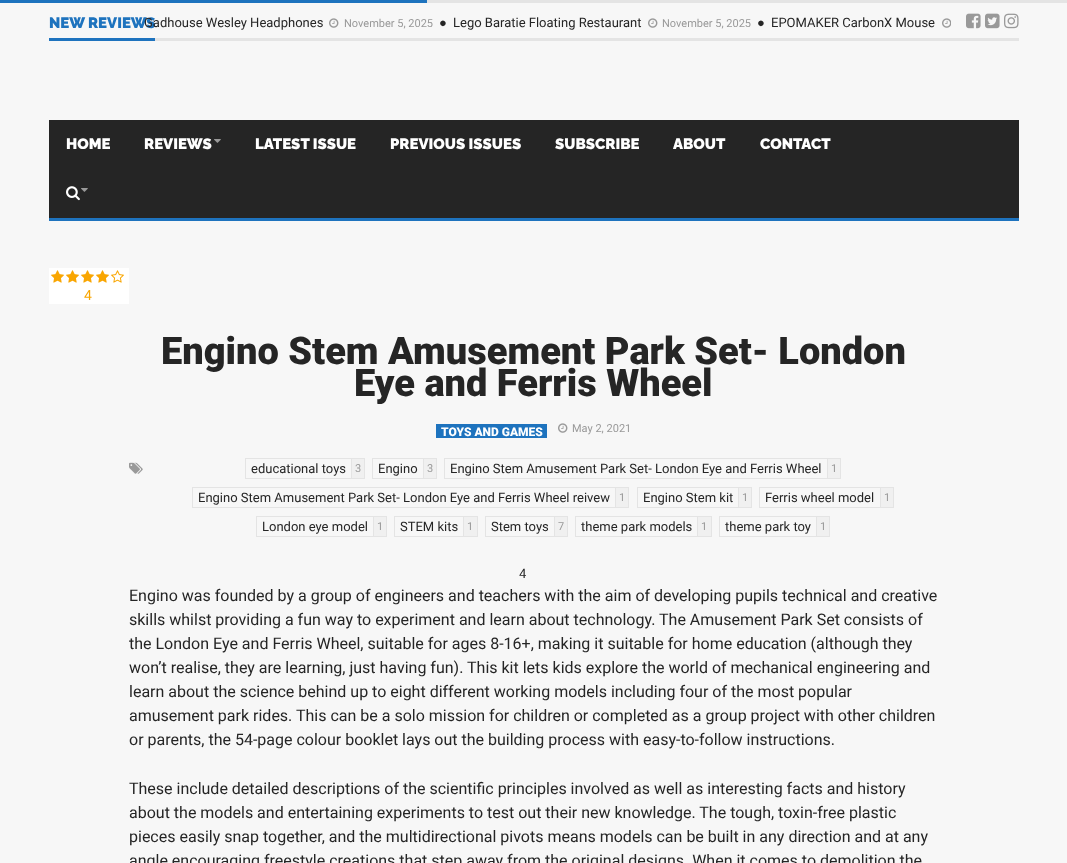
<svg xmlns="http://www.w3.org/2000/svg" width="1067" height="863">
	<rect width="100%" height="100%" fill="#F7F7F7" />
	<rect x="427" y="0" width="640" height="3" fill="#E4E4E4" />
	<rect x="0" y="0" width="427" height="3" fill="#1E73BE" />
	<rect x="155" y="38" width="864" height="3" fill="#E4E4E4" />
	<rect x="49" y="38" width="106" height="3" fill="#1E73BE" />
	<text x="49" y="28" font-family="Raleway" font-size="15" font-weight="900" fill="#1E73BE">NEW REVIEWS</text>
	<text x="144" y="27" font-family="Roboto" font-size="13" fill="#252525">Gadhouse Wesley Headphones</text>
	<image x="329" y="18" width="10" height="10" href="assets/img1.png" />
	<text x="344" y="27" font-family="Roboto" font-size="11" fill="#999999">November 5, 2025</text>
	<text x="439" y="27" font-family="Liberation Sans" font-size="13" fill="#252525">●</text>
	<text x="453" y="27" font-family="Roboto" font-size="13" fill="#252525">Lego Baratie Floating Restaurant</text>
	<image x="648" y="18" width="10" height="10" href="assets/img1.png" />
	<text x="662" y="27" font-family="Roboto" font-size="11" fill="#999999">November 5, 2025</text>
	<text x="757" y="27" font-family="Liberation Sans" font-size="13" fill="#252525">●</text>
	<text x="771" y="27" font-family="Roboto" font-size="13" fill="#252525">EPOMAKER CarbonX Mouse</text>
	<image x="942" y="18" width="9" height="10" href="assets/img2.png" />
	<image x="966" y="13" width="15" height="16" href="assets/img3.png" />
	<image x="985" y="13" width="15" height="16" href="assets/img4.png" />
	<image x="1004" y="13" width="15" height="16" href="assets/img5.png" />
	<rect x="49" y="218" width="970" height="3" fill="#1E73BE" />
	<rect x="49" y="120" width="970" height="98" fill="#252525" />
	<g font-family="Raleway" font-size="15" font-weight="900" fill="#FFFFFF">
		<text x="66" y="149">HOME</text>
		<text x="144" y="149">REVIEWS</text>
	</g>
	<image x="214" y="139" width="7" height="4" href="assets/img6.png" />
	<g font-family="Raleway" font-size="15" font-weight="900" fill="#FFFFFF">
		<text x="255" y="149">LATEST ISSUE</text>
		<text x="390" y="149">PREVIOUS ISSUES</text>
		<text x="555" y="149">SUBSCRIBE</text>
		<text x="673" y="149">ABOUT</text>
		<text x="760" y="149">CONTACT</text>
	</g>
	<image x="66" y="186" width="14" height="15" href="assets/img7.png" />
	<image x="81" y="188" width="7" height="4" href="assets/img6.png" />
	<rect x="49" y="268" width="80" height="36" fill="#FFFFFF" />
	<image x="51" y="270" width="13" height="13" href="assets/img8.png" />
	<image x="66" y="270" width="13" height="13" href="assets/img8.png" />
	<image x="81" y="270" width="13" height="13" href="assets/img8.png" />
	<image x="96" y="270" width="13" height="13" href="assets/img8.png" />
	<image x="111" y="270" width="13" height="13" href="assets/img9.png" />
	<text x="84" y="300" font-family="Roboto" font-size="14" letter-spacing="2" fill="#F9A602">4</text>
	<g font-family="Roboto" font-size="38" font-weight="900" fill="#252525">
		<text x="161" y="364">Engino Stem Amusement Park Set- London</text>
		<text x="354" y="396">Eye and Ferris Wheel</text>
	</g>
	<rect x="436" y="424" width="111" height="14" fill="#1E73BE" />
	<text x="441" y="436" font-family="Roboto" font-size="12" font-weight="900" fill="#FFFFFF">TOYS AND GAMES</text>
	<image x="558" y="423" width="10" height="10" href="assets/img1.png" />
	<text x="572" y="432" font-family="Roboto" font-size="11" fill="#999999">May 2, 2021</text>
	<image x="129" y="462" width="14" height="12" href="assets/img10.png" />
	<rect x="245.5" y="458.5" width="119" height="20" fill="none" stroke="#E4E4E4" />
	<text x="251" y="473" font-family="Roboto" font-size="13" fill="#252525">educational toys</text>
	<rect x="352" y="459" width="12" height="19" fill="#F0F0F0" />
	<rect x="351" y="459" width="1" height="19" fill="#E4E4E4" />
	<text x="355" y="472" font-family="Roboto" font-size="11" fill="#999999">3</text>
	<rect x="372.5" y="458.5" width="64" height="20" fill="none" stroke="#E4E4E4" />
	<text x="378" y="473" font-family="Roboto" font-size="13" fill="#252525">Engino</text>
	<rect x="424" y="459" width="12" height="19" fill="#F0F0F0" />
	<rect x="423" y="459" width="1" height="19" fill="#E4E4E4" />
	<text x="427" y="472" font-family="Roboto" font-size="11" fill="#999999">3</text>
	<rect x="444.5" y="458.5" width="396" height="20" fill="none" stroke="#E4E4E4" />
	<text x="450" y="473" font-family="Roboto" font-size="13" fill="#252525">Engino Stem Amusement Park Set- London Eye and Ferris Wheel</text>
	<rect x="828" y="459" width="12" height="19" fill="#F0F0F0" />
	<rect x="827" y="459" width="1" height="19" fill="#E4E4E4" />
	<text x="831" y="472" font-family="Roboto" font-size="11" fill="#999999">1</text>
	<rect x="192.5" y="487.5" width="436" height="20" fill="none" stroke="#E4E4E4" />
	<text x="198" y="502" font-family="Roboto" font-size="13" fill="#252525">Engino Stem Amusement Park Set- London Eye and Ferris Wheel reivew</text>
	<rect x="616" y="488" width="12" height="19" fill="#F0F0F0" />
	<rect x="615" y="488" width="1" height="19" fill="#E4E4E4" />
	<text x="619" y="501" font-family="Roboto" font-size="11" fill="#999999">1</text>
	<rect x="637.5" y="487.5" width="114" height="20" fill="none" stroke="#E4E4E4" />
	<text x="643" y="502" font-family="Roboto" font-size="13" fill="#252525">Engino Stem kit</text>
	<rect x="739" y="488" width="12" height="19" fill="#F0F0F0" />
	<rect x="738" y="488" width="1" height="19" fill="#E4E4E4" />
	<text x="742" y="501" font-family="Roboto" font-size="11" fill="#999999">1</text>
	<rect x="759.5" y="487.5" width="134" height="20" fill="none" stroke="#E4E4E4" />
	<text x="765" y="502" font-family="Roboto" font-size="13" fill="#252525">Ferris wheel model</text>
	<rect x="881" y="488" width="12" height="19" fill="#F0F0F0" />
	<rect x="880" y="488" width="1" height="19" fill="#E4E4E4" />
	<text x="884" y="501" font-family="Roboto" font-size="11" fill="#999999">1</text>
	<rect x="256.5" y="516.5" width="130" height="20" fill="none" stroke="#E4E4E4" />
	<text x="262" y="531" font-family="Roboto" font-size="13" fill="#252525">London eye model</text>
	<rect x="374" y="517" width="12" height="19" fill="#F0F0F0" />
	<rect x="373" y="517" width="1" height="19" fill="#E4E4E4" />
	<text x="377" y="530" font-family="Roboto" font-size="11" fill="#999999">1</text>
	<rect x="394.5" y="516.5" width="83" height="20" fill="none" stroke="#E4E4E4" />
	<text x="400" y="531" font-family="Roboto" font-size="13" fill="#252525">STEM kits</text>
	<rect x="464" y="517" width="13" height="19" fill="#F0F0F0" />
	<rect x="463" y="517" width="1" height="19" fill="#E4E4E4" />
	<text x="467" y="530" font-family="Roboto" font-size="11" fill="#999999">1</text>
	<rect x="485.5" y="516.5" width="82" height="20" fill="none" stroke="#E4E4E4" />
	<text x="491" y="531" font-family="Roboto" font-size="13" fill="#252525">Stem toys</text>
	<rect x="555" y="517" width="12" height="19" fill="#F0F0F0" />
	<rect x="554" y="517" width="1" height="19" fill="#E4E4E4" />
	<text x="558" y="530" font-family="Roboto" font-size="11" fill="#999999">7</text>
	<rect x="575.5" y="516.5" width="136" height="20" fill="none" stroke="#E4E4E4" />
	<text x="581" y="531" font-family="Roboto" font-size="13" fill="#252525">theme park models</text>
	<rect x="698" y="517" width="13" height="19" fill="#F0F0F0" />
	<rect x="697" y="517" width="1" height="19" fill="#E4E4E4" />
	<text x="701" y="530" font-family="Roboto" font-size="11" fill="#999999">1</text>
	<rect x="719.5" y="516.5" width="110" height="20" fill="none" stroke="#E4E4E4" />
	<text x="725" y="531" font-family="Roboto" font-size="13" fill="#252525">theme park toy</text>
	<rect x="817" y="517" width="12" height="19" fill="#F0F0F0" />
	<rect x="816" y="517" width="1" height="19" fill="#E4E4E4" />
	<text x="820" y="530" font-family="Roboto" font-size="11" fill="#999999">1</text>
	<text x="519" y="578" font-family="Roboto" font-size="13" fill="#252525">4</text>
	<g font-family="Roboto" font-size="16" fill="#252525">
		<text x="129" y="601">Engino was founded by a group of engineers and teachers with the aim of developing pupils technical and creative</text>
		<text x="129" y="625">skills whilst providing a fun way to experiment and learn about technology. The Amusement Park Set consists of</text>
		<text x="129" y="649">the London Eye and Ferris Wheel, suitable for ages 8-16+, making it suitable for home education (although they</text>
		<text x="129" y="673">won’t realise, they are learning, just having fun). This kit lets kids explore the world of mechanical engineering and</text>
		<text x="129" y="697">learn about the science behind up to eight different working models including four of the most popular</text>
		<text x="129" y="721">amusement park rides. This can be a solo mission for children or completed as a group project with other children</text>
		<text x="129" y="745">or parents, the 54-page colour booklet lays out the building process with easy-to-follow instructions.</text>
		<text x="129" y="794">These include detailed descriptions of the scientific principles involved as well as interesting facts and history</text>
		<text x="129" y="818">about the models and entertaining experiments to test out their new knowledge. The tough, toxin-free plastic</text>
		<text x="129" y="842">pieces easily snap together, and the multidirectional pivots means models can be built in any direction and at any</text>
		<text x="129" y="866">angle encouraging freestyle creations that step away from the original designs. When it comes to demolition the</text>
	</g>
</svg>
